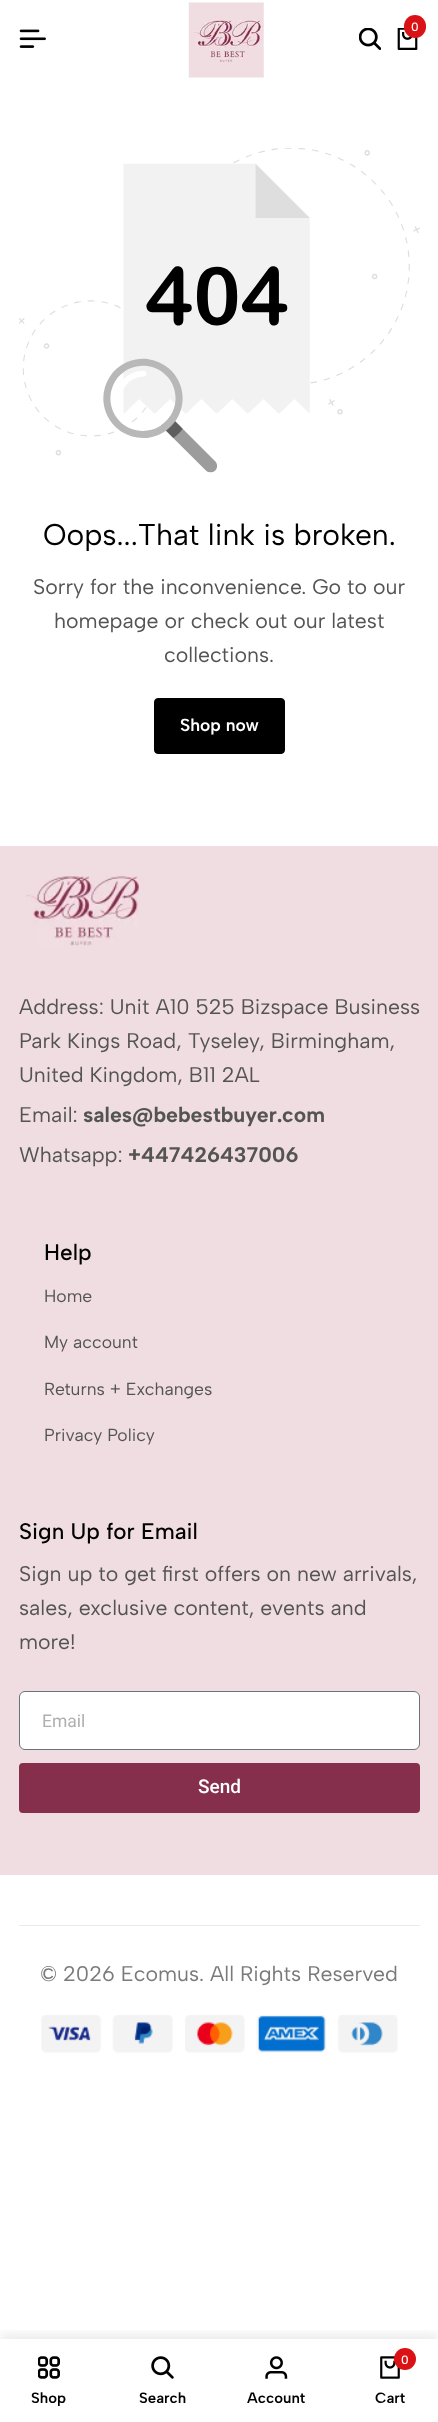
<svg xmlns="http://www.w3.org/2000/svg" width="438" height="2422">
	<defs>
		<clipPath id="clip1"><rect x="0" y="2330" width="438" height="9" /></clipPath>
	</defs>
	<rect width="100%" height="100%" fill="#FFFFFF" />
	<image x="188" y="2" width="76" height="76" href="assets/img1.png" />
	<image x="397" y="28" width="21" height="22" href="assets/img2.png" />
	<rect x="404" y="15" width="22" height="23" rx="11" fill="#DB1215" />
	<text x="411" y="31" font-family="Albert Sans" font-size="12" font-weight="500" fill="#FFFFFF">0</text>
	<image x="359" y="28" width="22" height="22" href="assets/img3.png" />
	<image x="19" y="29" width="27" height="19" href="assets/img4.png" />
	<image x="19" y="148" width="401" height="325" href="assets/img5.png" />
	<text x="43" y="545" font-family="Albert Sans" font-size="30" fill="#000000">Oops...That link is broken.</text>
	<g font-family="Albert Sans" font-size="21.25" fill="#545454">
		<text x="33" y="594">Sorry for the inconvenience. Go to our</text>
		<text x="54" y="628">homepage or check out our latest</text>
		<text x="164" y="662">collections.</text>
	</g>
	<rect x="154.5" y="698.5" width="130" height="55" rx="3.5" fill="#000000" stroke="#000000" />
	<text x="180" y="731" font-family="Albert Sans" font-size="17.5" font-weight="600" fill="#FFFFFF">Shop now</text>
	<rect x="0" y="846" width="438" height="1029" fill="#F0DDE1" />
	<image x="26" y="875" width="114" height="71" href="assets/img6.png" />
	<g font-family="Albert Sans" font-size="21.25" fill="#545454">
		<text x="19" y="1014">Address: Unit A10 525 Bizspace Business</text>
		<text x="19" y="1048">Park Kings Road, Tyseley, Birmingham,</text>
		<text x="19" y="1082">United Kingdom, B11 2AL</text>
		<text x="19" y="1122">Email:</text>
	</g>
	<text x="83" y="1122" font-family="Albert Sans" font-size="21.25" font-weight="700" fill="#545454">sales@bebestbuyer.com</text>
	<text x="19" y="1162" font-family="Albert Sans" font-size="21.25" fill="#545454">Whatsapp:</text>
	<text x="128" y="1162" font-family="Albert Sans" font-size="21.25" font-weight="700" fill="#545454">+447426437006</text>
	<text x="44" y="1260" font-family="Albert Sans" font-size="22.5" font-weight="500" fill="#000000">Help</text>
	<g font-family="Albert Sans" font-size="17.5" fill="#545454">
		<text x="44" y="1302">Home</text>
		<text x="44" y="1348">My account</text>
		<text x="44" y="1395">Returns + Exchanges</text>
		<text x="44" y="1441">Privacy Policy</text>
	</g>
	<text x="19" y="1539" font-family="Albert Sans" font-size="22.5" font-weight="500" fill="#000000">Sign Up for Email</text>
	<g font-family="Albert Sans" font-size="21.25" fill="#545454">
		<text x="19" y="1581">Sign up to get first offers on new arrivals,</text>
		<text x="19" y="1615">sales, exclusive content, events and</text>
		<text x="19" y="1649">more!</text>
	</g>
	<rect x="19.5" y="1691.5" width="400" height="58" rx="5.5" fill="#FFFFFF" stroke="#69727D" />
	<text x="42" y="1727" font-family="Roboto" font-size="17.5" fill="#AFAFAF">Email</text>
	<rect x="21" y="1765" width="397" height="46" rx="2" fill="#852F4C" stroke="#852F4C" stroke-width="4" />
	<text x="198" y="1793" font-family="Roboto" font-size="19" font-weight="500" fill="#FFFFFF">Send</text>
	<rect x="19" y="1925" width="401" height="1" fill="#EBEBEB" />
	<text x="40" y="1981" font-family="Albert Sans" font-size="21.25" fill="#7A7A7A">© 2026 Ecomus. All Rights Reserved</text>
	<image x="41" y="2015" width="357" height="38" href="assets/img7.png" />
	<g clip-path="url(#clip1)">
		<rect x="0" y="2334" width="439" height="84" fill="#000000" fill-opacity="0.08" filter="blur(6px)" />
	</g>
	<image x="38" y="2356" width="22" height="23" href="assets/img8.png" />
	<text x="31" y="2403" font-family="Albert Sans" font-size="15" font-weight="600" fill="#000000">Shop</text>
	<image x="151" y="2356" width="23" height="23" href="assets/img9.png" />
	<text x="139" y="2403" font-family="Albert Sans" font-size="15" font-weight="600" fill="#000000">Search</text>
	<image x="265" y="2356" width="23" height="23" href="assets/img10.png" />
	<text x="247" y="2403" font-family="Albert Sans" font-size="15" font-weight="600" fill="#000000">Account</text>
	<image x="380" y="2356" width="20" height="23" href="assets/img11.png" />
	<circle cx="405" cy="2359" r="11" fill="#DB1215" />
	<text x="401" y="2364" font-family="Albert Sans" font-size="12" font-weight="500" fill="#FFFFFF">0</text>
	<text x="375" y="2403" font-family="Albert Sans" font-size="15" font-weight="600" fill="#000000">Cart</text>
</svg>
